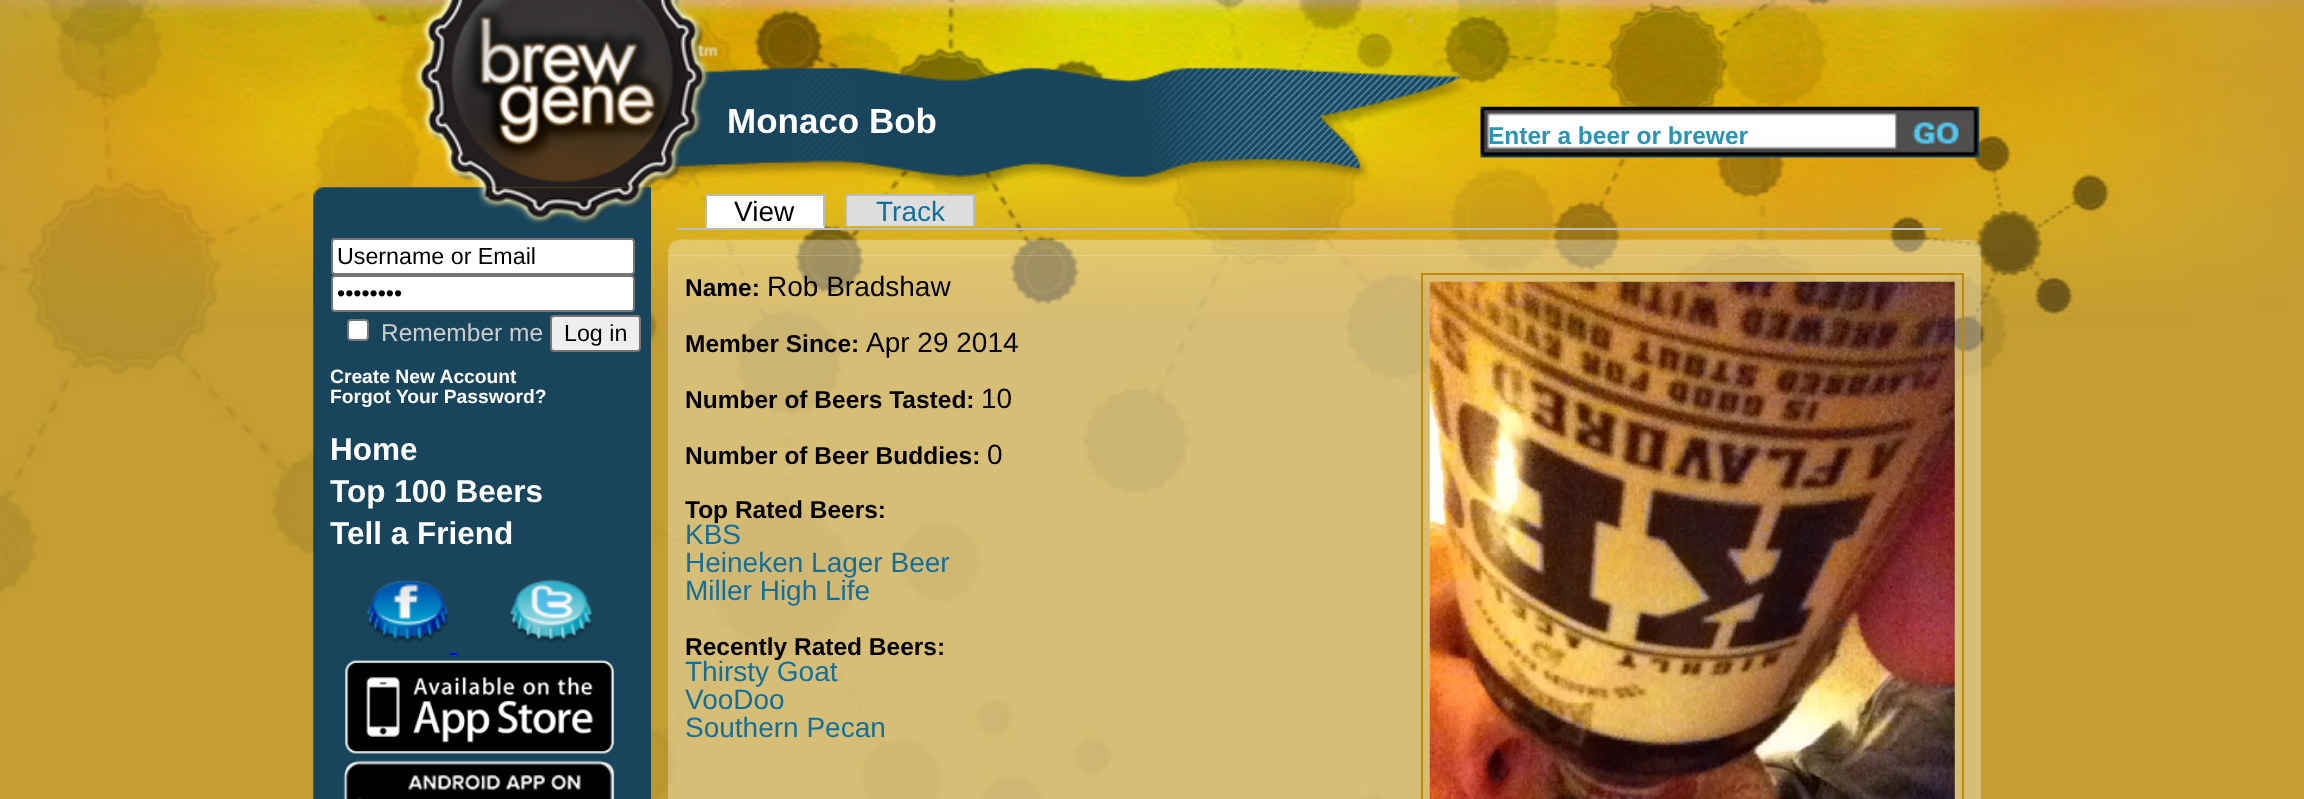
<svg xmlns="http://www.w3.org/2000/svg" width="2304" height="799">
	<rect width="100%" height="100%" fill="#FFFFFF" />
	<image x="0" y="0" width="2304" height="799" href="assets/img1.png" />
	<image x="414" y="0" width="1053" height="188" href="assets/img2.png" />
	<text x="727" y="133" font-family="Liberation Sans" font-size="35" font-weight="700" fill="#FFFFFF">Monaco Bob</text>
	<image x="1480" y="106" width="500" height="52" href="assets/img3.png" />
	<text x="1488" y="144" font-family="Liberation Sans" font-size="24.5" font-weight="700" fill="#2C93B5">Enter a beer or brewer</text>
	<image x="313" y="187" width="338" height="612" href="assets/img4.png" />
	<rect x="332" y="239" width="302" height="35" rx="3" fill="#FFFFFF" stroke="#767676" stroke-width="2" />
	<text x="337" y="264" font-family="Liberation Sans" font-size="23.25" fill="#000000">Username or Email</text>
	<rect x="332" y="276" width="302" height="35" rx="3" fill="#FFFFFF" stroke="#767676" stroke-width="2" />
	<text x="337" y="301" font-family="Liberation Sans" font-size="23.25" fill="#000000">••••••••</text>
	<rect x="348" y="320" width="20" height="20" rx="3" fill="#FFFFFF" stroke="#767676" stroke-width="2" />
	<text x="381" y="341" font-family="Liberation Sans" font-size="24.5" fill="#CCCCCC">Remember me</text>
	<rect x="551" y="316" width="89" height="35" rx="3" fill="#EFEFEF" stroke="#767676" stroke-width="2" />
	<text x="564" y="341" font-family="Liberation Sans" font-size="23.25" fill="#000000">Log in</text>
	<g font-family="Liberation Sans" font-size="19.25" font-weight="700" fill="#FFFFFF">
		<text x="330" y="383">Create New Account</text>
		<text x="330" y="403">Forgot Your Password?</text>
	</g>
	<g font-family="Liberation Sans" font-size="31.5" font-weight="700" fill="#FFFFFF">
		<text x="330" y="460">Home</text>
		<text x="330" y="502">Top 100 Beers</text>
		<text x="330" y="544">Tell a Friend</text>
	</g>
	<image x="367" y="579" width="82" height="64" href="assets/img5.png" />
	<image x="510" y="579" width="82" height="64" href="assets/img6.png" />
	<rect x="450" y="653" width="7" height="2" fill="#0000EE" />
	<image x="345" y="660" width="270" height="94" href="assets/img7.png" />
	<image x="343" y="760" width="272" height="39" href="assets/img8.png" />
	<rect x="677" y="228" width="1264" height="2" fill="#BBBBBB" />
	<rect x="707" y="196" width="116" height="30" fill="#FFFFFF" />
	<text x="734" y="221" font-family="Liberation Sans" font-size="28" fill="#000000">View</text>
	<rect x="705" y="194" width="119" height="2" fill="#BBBBBB" />
	<rect x="823" y="194" width="2" height="34" fill="#BBBBBB" />
	<rect x="705" y="226" width="119" height="2" fill="#FFFFFF" />
	<rect x="705" y="194" width="2" height="34" fill="#BBBBBB" />
	<rect x="847" y="196" width="126" height="30" fill="#DDDDDD" />
	<text x="876" y="221" font-family="Liberation Sans" font-size="28" fill="#126F9D">Track</text>
	<rect x="845" y="194" width="130" height="2" fill="#BBBBBB" />
	<rect x="973" y="194" width="2" height="32" fill="#BBBBBB" />
	<rect x="845" y="194" width="2" height="32" fill="#BBBBBB" />
	<rect x="668" y="255" width="1313" height="544" fill="#FFFFFF" fill-opacity="0.33" />
	<image x="668" y="239" width="1313" height="17" href="assets/img9.png" />
	<text x="685" y="296" font-family="Liberation Sans" font-size="24.5" font-weight="700" fill="#000000">Name:</text>
	<text x="767" y="296" font-family="Liberation Sans" font-size="28" fill="#000000">Rob Bradshaw</text>
	<text x="685" y="352" font-family="Liberation Sans" font-size="24.5" font-weight="700" fill="#000000">Member Since:</text>
	<text x="866" y="352" font-family="Liberation Sans" font-size="28" fill="#000000">Apr 29 2014</text>
	<text x="685" y="408" font-family="Liberation Sans" font-size="24.5" font-weight="700" fill="#000000">Number of Beers Tasted:</text>
	<text x="981" y="408" font-family="Liberation Sans" font-size="28" fill="#000000">10</text>
	<text x="685" y="464" font-family="Liberation Sans" font-size="24.5" font-weight="700" fill="#000000">Number of Beer Buddies:</text>
	<text x="987" y="464" font-family="Liberation Sans" font-size="28" fill="#000000">0</text>
	<text x="685" y="518" font-family="Liberation Sans" font-size="24.5" font-weight="700" fill="#000000">Top Rated Beers:</text>
	<g font-family="Liberation Sans" font-size="28" fill="#126F9D">
		<text x="685" y="544">KBS</text>
		<text x="685" y="572">Heineken Lager Beer</text>
		<text x="685" y="600">Miller High Life</text>
	</g>
	<text x="685" y="655" font-family="Liberation Sans" font-size="24.5" font-weight="700" fill="#000000">Recently Rated Beers:</text>
	<g font-family="Liberation Sans" font-size="28" fill="#126F9D">
		<text x="685" y="681">Thirsty Goat</text>
		<text x="685" y="709">VooDoo</text>
		<text x="685" y="737">Southern Pecan</text>
	</g>
	<rect x="1422" y="274" width="541" height="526" fill="none" stroke="#C08A02" stroke-width="2" />
	<image x="1429" y="281" width="526" height="518" href="assets/img10.png" />
</svg>
